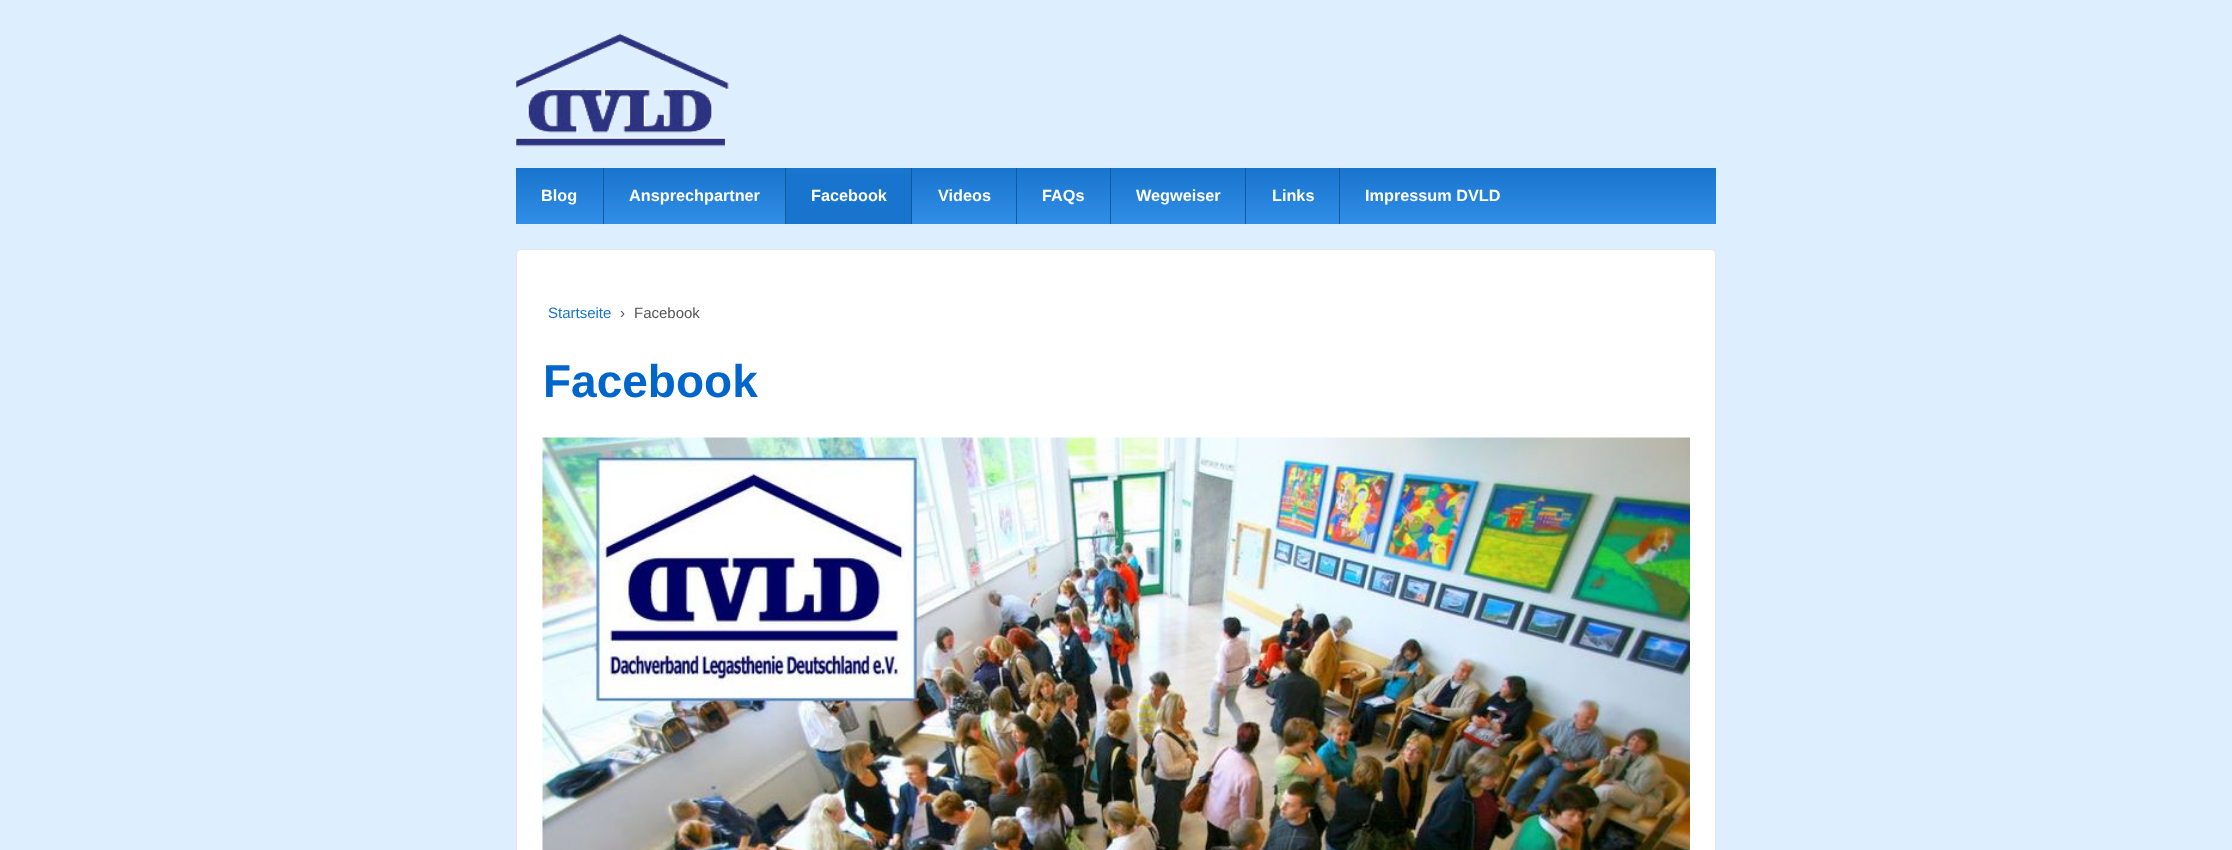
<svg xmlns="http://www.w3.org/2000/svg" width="2232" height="850">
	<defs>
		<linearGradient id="g1" gradientUnits="userSpaceOnUse" x1="1116" y1="224" x2="1116" y2="168"><stop offset="0" stop-color="#318EE7" /><stop offset="1" stop-color="#1874CD" /></linearGradient>
	</defs>
	<rect width="100%" height="100%" fill="#DDEFFF" />
	<image x="516" y="32" width="213" height="115" href="assets/img1.png" />
	<rect x="516" y="168" width="1200" height="56" fill="url(#g1)" />
	<text x="541" y="201" font-family="Liberation Sans" font-size="16.25" font-weight="700" fill="#FFFFFF">Blog</text>
	<rect x="603" y="168" width="1" height="56" fill="#135A9F" />
	<text x="629" y="201" font-family="Liberation Sans" font-size="16.25" font-weight="700" fill="#FFFFFF">Ansprechpartner</text>
	<rect x="786" y="173" width="125" height="51" fill="#1874CD" />
	<rect x="785" y="168" width="1" height="56" fill="#135A9F" />
	<text x="811" y="201" font-family="Liberation Sans" font-size="16.25" font-weight="700" fill="#FFFFFF">Facebook</text>
	<rect x="911" y="168" width="1" height="56" fill="#135A9F" />
	<text x="938" y="201" font-family="Liberation Sans" font-size="16.25" font-weight="700" fill="#FFFFFF">Videos</text>
	<rect x="1016" y="168" width="1" height="56" fill="#135A9F" />
	<text x="1042" y="201" font-family="Liberation Sans" font-size="16.25" font-weight="700" fill="#FFFFFF">FAQs</text>
	<rect x="1110" y="168" width="1" height="56" fill="#135A9F" />
	<text x="1136" y="201" font-family="Liberation Sans" font-size="16.25" font-weight="700" fill="#FFFFFF">Wegweiser</text>
	<rect x="1245" y="168" width="1" height="56" fill="#135A9F" />
	<text x="1272" y="201" font-family="Liberation Sans" font-size="16.25" font-weight="700" fill="#FFFFFF">Links</text>
	<rect x="1339" y="168" width="1" height="56" fill="#135A9F" />
	<text x="1365" y="201" font-family="Liberation Sans" font-size="16.25" font-weight="700" fill="#FFFFFF">Impressum DVLD</text>
	<rect x="516.5" y="249.5" width="1199" height="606" rx="4.5" fill="#FFFFFF" stroke="#E5E5E5" />
	<text x="548" y="318" font-family="Liberation Sans" font-size="15" fill="#1874CD">Startseite</text>
	<g font-family="Liberation Sans" font-size="15" fill="#555555">
		<text x="620" y="318">›</text>
		<text x="634" y="318">Facebook</text>
	</g>
	<text x="543" y="397" font-family="Liberation Sans" font-size="46" font-weight="700" fill="#0066CC">Facebook</text>
	<image x="542" y="437" width="1148" height="413" href="assets/img2.png" />
</svg>
